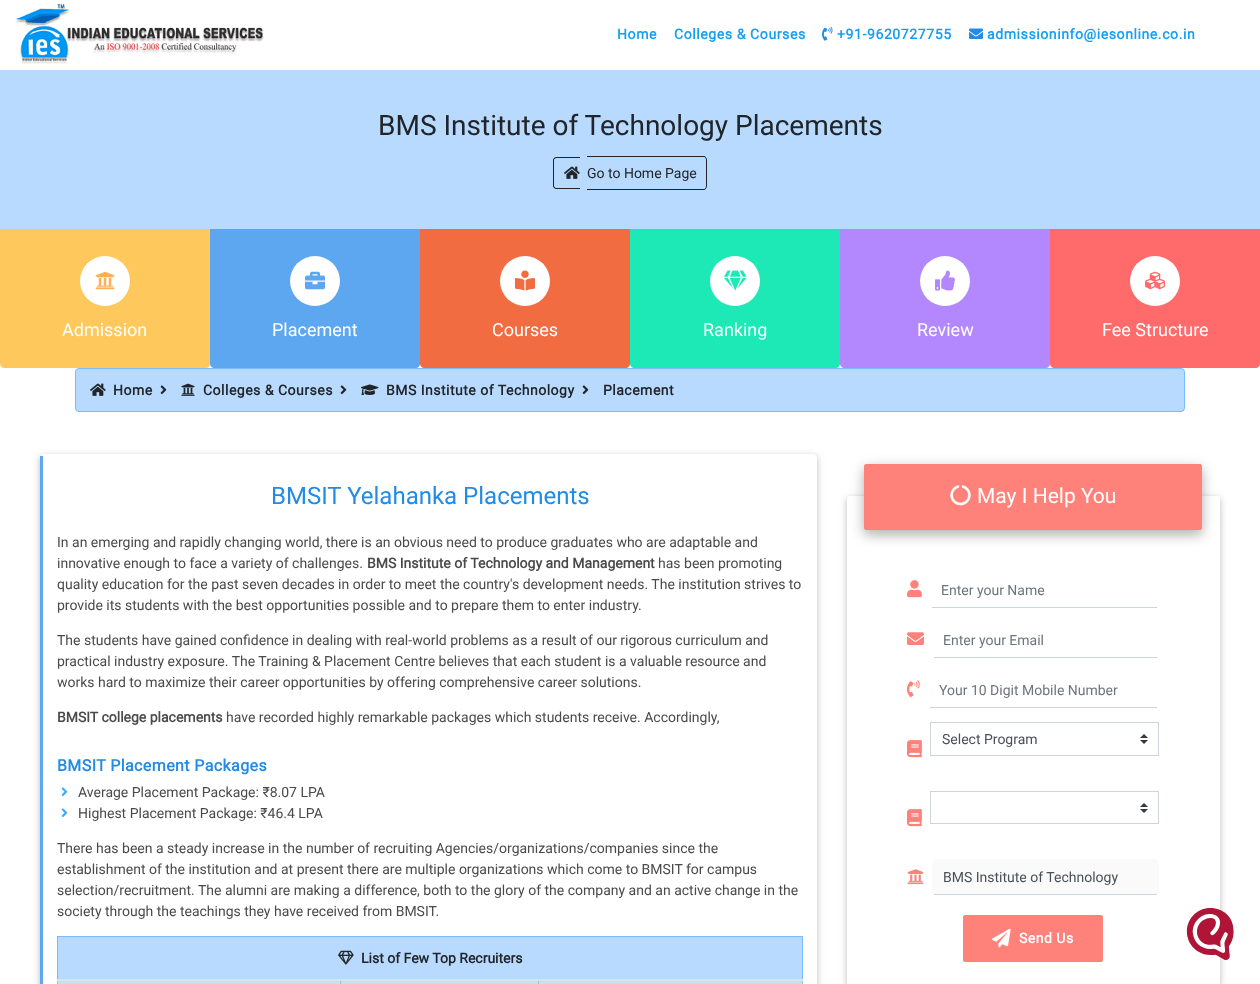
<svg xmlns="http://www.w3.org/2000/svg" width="1260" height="984">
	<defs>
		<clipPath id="clip1"><path d="M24 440H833V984H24ZM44 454H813C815 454 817 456 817 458V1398C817 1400 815 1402 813 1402H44C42 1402 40 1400 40 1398V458C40 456 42 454 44 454Z" clip-rule="evenodd" /></clipPath>
		<clipPath id="clip2"><path d="M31 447H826V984H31ZM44 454H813C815 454 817 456 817 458V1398C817 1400 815 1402 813 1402H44C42 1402 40 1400 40 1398V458C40 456 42 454 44 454Z" clip-rule="evenodd" /></clipPath>
	</defs>
	<rect width="100%" height="100%" fill="#FFFFFF" />
	<image x="15" y="4" width="249" height="60" href="assets/img1.png" />
	<g font-family="Roboto" font-size="14" font-weight="700" letter-spacing="0.6" fill="#139FF2">
		<text x="617" y="39">Home</text>
		<text x="674" y="39">Colleges &amp; Courses</text>
	</g>
	<image x="822" y="26" width="11" height="15" href="assets/img2.png" />
	<text x="837" y="39" font-family="Roboto" font-size="14" font-weight="700" letter-spacing="0.6" fill="#139FF2">+91-9620727755</text>
	<image x="969" y="28" width="14" height="11" href="assets/img3.png" />
	<text x="987" y="39" font-family="Roboto" font-size="14" font-weight="700" letter-spacing="0.6" fill="#139FF2">admissioninfo@iesonline.co.in</text>
	<rect x="0" y="70" width="1260" height="159" fill="#B8DAFF" />
	<text x="378" y="135" font-family="Roboto" font-size="28" fill="#212529">BMS Institute of Technology Placements</text>
	<path d="M556.5 157H580V189H556.5C554.5 189 553 187.5 553 185.5V160.5C553 158.5 554.5 157 556.5 157ZM556.5 158H580V188H556.5C555 188 554 187 554 185.5V160.5C554 159 555 158 556.5 158Z" fill="#212529" fill-rule="evenodd" />
	<path d="M587 156H704C705 156 707 158 707 160V186C707 188 705 190 704 190H587ZM587 157H704C705 157 706 158 706 160V186C706 188 705 189 704 189H587Z" fill="#212529" fill-rule="evenodd" />
	<image x="564" y="166" width="16" height="13" href="assets/img4.png" />
	<text x="587" y="178" font-family="Roboto" font-size="14" fill="#212529">Go to Home Page</text>
	<path d="M0 229H210V364C210 366 208 368 206 368H4C2 368 0 366 0 364Z" fill="#FFC85C" />
	<circle cx="105" cy="281" r="25" fill="#FFFFFF" />
	<image x="95" y="271" width="20" height="19" href="assets/img5.png" />
	<text x="62" y="336" font-family="Roboto" font-size="18" fill="#FFFFFF">Admission</text>
	<path d="M210 229H420V364C420 366 418 368 416 368H214C212 368 210 366 210 364Z" fill="#5DA7F0" />
	<circle cx="315" cy="281" r="25" fill="#FFFFFF" />
	<image x="305" y="271" width="20" height="19" href="assets/img6.png" />
	<text x="272" y="336" font-family="Roboto" font-size="18" fill="#FFFFFF">Placement</text>
	<path d="M420 229H630V364C630 366 628 368 626 368H424C422 368 420 366 420 364Z" fill="#F16C40" />
	<circle cx="525" cy="281" r="25" fill="#FFFFFF" />
	<image x="515" y="270" width="20" height="21" href="assets/img7.png" />
	<text x="492" y="336" font-family="Roboto" font-size="18" fill="#FFFFFF">Courses</text>
	<path d="M630 229H840V364C840 366 838 368 836 368H634C632 368 630 366 630 364Z" fill="#1DE9B6" />
	<circle cx="735" cy="281" r="25" fill="#FFFFFF" />
	<image x="724" y="270" width="23" height="21" href="assets/img8.png" />
	<text x="703" y="336" font-family="Roboto" font-size="18" fill="#FFFFFF">Ranking</text>
	<path d="M840 229H1050V364C1050 366 1048 368 1046 368H844C842 368 840 366 840 364Z" fill="#B388FF" />
	<circle cx="945" cy="281" r="25" fill="#FFFFFF" />
	<image x="935" y="270" width="20" height="21" href="assets/img9.png" />
	<text x="917" y="336" font-family="Roboto" font-size="18" fill="#FFFFFF">Review</text>
	<path d="M1050 229H1260V364C1260 366 1258 368 1256 368H1054C1052 368 1050 366 1050 364Z" fill="#FF6B6B" />
	<circle cx="1155" cy="281" r="25" fill="#FFFFFF" />
	<image x="1145" y="271" width="20" height="19" href="assets/img10.png" />
	<text x="1102" y="336" font-family="Roboto" font-size="18" fill="#FFFFFF">Fee Structure</text>
	<rect x="75.5" y="368.5" width="1109" height="43" rx="3.5" fill="#B8DAFF" stroke="#7ABAFF" />
	<image x="90" y="383" width="16" height="13" href="assets/img4.png" />
	<text x="113" y="395" font-family="Roboto" font-size="14" font-weight="700" letter-spacing="0.5" fill="#212529">Home</text>
	<image x="160" y="385" width="7" height="10" href="assets/img11.png" />
	<image x="181" y="383" width="14" height="13" href="assets/img12.png" />
	<text x="203" y="395" font-family="Roboto" font-size="14" font-weight="700" letter-spacing="0.5" fill="#212529">Colleges &amp; Courses</text>
	<image x="340" y="385" width="7" height="10" href="assets/img11.png" />
	<image x="361" y="384" width="18" height="11" href="assets/img13.png" />
	<text x="386" y="395" font-family="Roboto" font-size="14" font-weight="700" letter-spacing="0.5" fill="#212529">BMS Institute of Technology</text>
	<image x="582" y="385" width="7" height="10" href="assets/img11.png" />
	<text x="603" y="395" font-family="Roboto" font-size="14" font-weight="700" letter-spacing="0.5" fill="#212529">Placement</text>
	<g clip-path="url(#clip1)">
		<rect x="40" y="456" width="777" height="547" rx="4" fill="#000000" fill-opacity="0.12" filter="blur(5px)" />
	</g>
	<g clip-path="url(#clip2)">
		<rect x="40" y="456" width="777" height="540" rx="4" fill="#000000" fill-opacity="0.16" filter="blur(2.5px)" />
	</g>
	<rect x="40" y="456" width="3" height="528" fill="#5DA7F0" />
	<text x="271" y="504" font-family="Roboto" font-size="24" fill="#228BE6">BMSIT Yelahanka Placements</text>
	<g font-family="Roboto" font-size="14" fill="#4A4A4A">
		<text x="57" y="547">In an emerging and rapidly changing world, there is an obvious need to produce graduates who are adaptable and</text>
		<text x="57" y="568">innovative enough to face a variety of challenges.</text>
	</g>
	<text x="367" y="568" font-family="Roboto" font-size="14" font-weight="700" fill="#4A4A4A">BMS Institute of Technology and Management</text>
	<g font-family="Roboto" font-size="14" fill="#4A4A4A">
		<text x="658" y="568">has been promoting</text>
		<text x="57" y="589">quality education for the past seven decades in order to meet the country's development needs. The institution strives to</text>
		<text x="57" y="610">provide its students with the best opportunities possible and to prepare them to enter industry.</text>
		<text x="57" y="645">The students have gained confidence in dealing with real-world problems as a result of our rigorous curriculum and</text>
		<text x="57" y="666">practical industry exposure. The Training &amp; Placement Centre believes that each student is a valuable resource and</text>
		<text x="57" y="687">works hard to maximize their career opportunities by offering comprehensive career solutions.</text>
	</g>
	<text x="57" y="722" font-family="Roboto" font-size="14" font-weight="700" fill="#4A4A4A">BMSIT college placements</text>
	<text x="226" y="722" font-family="Roboto" font-size="14" fill="#4A4A4A">have recorded highly remarkable packages which students receive. Accordingly,</text>
	<text x="57" y="771" font-family="Roboto" font-size="16" font-weight="700" letter-spacing="0.4" fill="#228BE6">BMSIT Placement Packages</text>
	<image x="61" y="787" width="7" height="10" href="assets/img14.png" />
	<text x="78" y="797" font-family="Roboto" font-size="14" fill="#4A4A4A">Average Placement Package: ₹8.07 LPA</text>
	<image x="61" y="808" width="7" height="10" href="assets/img14.png" />
	<g font-family="Roboto" font-size="14" fill="#4A4A4A">
		<text x="78" y="818">Highest Placement Package: ₹46.4 LPA</text>
		<text x="57" y="853">There has been a steady increase in the number of recruiting Agencies/organizations/companies since the</text>
		<text x="57" y="874">establishment of the institution and at present there are multiple organizations which come to BMSIT for campus</text>
		<text x="57" y="895">selection/recruitment. The alumni are making a difference, both to the glory of the company and an active change in the</text>
		<text x="57" y="916">society through the teachings they have received from BMSIT.</text>
	</g>
	<rect x="58" y="937" width="744" height="42" fill="#B8DAFF" />
	<rect x="57" y="936" width="746" height="1" fill="#7ABAFF" />
	<rect x="802" y="980" width="1" height="4" fill="#86CFDA" />
	<rect x="802" y="936" width="1" height="45" fill="#7ABAFF" />
	<rect x="57" y="980" width="1" height="4" fill="#86CFDA" />
	<rect x="57" y="936" width="1" height="45" fill="#7ABAFF" />
	<rect x="58" y="981" width="744" height="3" fill="#BEE5EB" />
	<rect x="340" y="980" width="1" height="4" fill="#86CFDA" />
	<rect x="538" y="980" width="1" height="4" fill="#86CFDA" />
	<rect x="57" y="979" width="746" height="2" fill="#DEE2E6" />
	<image x="338" y="950" width="16" height="15" href="assets/img15.png" />
	<text x="361" y="963" font-family="Roboto" font-size="14" font-weight="700" fill="#212529">List of Few Top Recruiters</text>
	<rect x="847" y="498" width="373" height="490" rx="2" fill="#000000" fill-opacity="0.12" filter="blur(5px)" />
	<rect x="847" y="498" width="373" height="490" rx="2" fill="#000000" fill-opacity="0.16" filter="blur(2.5px)" />
	<rect x="847" y="496" width="373" height="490" rx="2" fill="#FFFFFF" />
	<rect x="864" y="468" width="338" height="66" rx="2" fill="#000000" fill-opacity="0.15" filter="blur(7.5px)" />
	<rect x="864" y="469" width="338" height="66" rx="2" fill="#000000" fill-opacity="0.18" filter="blur(5.5px)" />
	<rect x="864.5" y="464.5" width="337" height="65" rx="1.5" fill="#FE8279" stroke="#FE8279" />
	<image x="950" y="485" width="21" height="21" href="assets/img16.png" />
	<text x="977" y="503" font-family="Roboto" font-size="21" fill="#FFFFFF">May I Help You</text>
	<image x="907" y="580" width="15" height="18" href="assets/img17.png" />
	<rect x="932" y="607" width="225" height="1" fill="#CED4DA" />
	<text x="941" y="595" font-family="Roboto" font-size="14" fill="#6C757D">Enter your Name</text>
	<image x="907" y="632" width="17" height="13" href="assets/img18.png" />
	<rect x="934" y="657" width="223" height="1" fill="#CED4DA" />
	<text x="943" y="645" font-family="Roboto" font-size="14" fill="#6C757D">Enter your Email</text>
	<image x="907" y="680" width="13" height="18" href="assets/img19.png" />
	<rect x="930" y="707" width="227" height="1" fill="#CED4DA" />
	<text x="939" y="695" font-family="Roboto" font-size="14" fill="#6C757D">Your 10 Digit Mobile Number</text>
	<image x="907" y="740" width="15" height="18" href="assets/img20.png" />
	<image x="1140" y="734" width="8" height="10" href="assets/img21.png" />
	<rect x="930.5" y="722.5" width="228" height="33" fill="none" stroke="#CED4DA" />
	<text x="942" y="744" font-family="Roboto" font-size="14" fill="#495057">Select Program</text>
	<image x="907" y="809" width="15" height="18" href="assets/img20.png" />
	<image x="1140" y="803" width="8" height="10" href="assets/img21.png" />
	<rect x="930.5" y="791.5" width="228" height="32" fill="none" stroke="#CED4DA" />
	<image x="907" y="869" width="17" height="16" href="assets/img22.png" />
	<path d="M936 859H1156C1157 859 1159 861 1159 862V892C1159 893 1157 894 1156 894H936C934 894 932 893 932 892V862C932 861 934 859 936 859Z" fill="#FAFAFA" />
	<rect x="934" y="894" width="223" height="1" fill="#CED4DA" />
	<text x="943" y="882" font-family="Roboto" font-size="14" fill="#495057">BMS Institute of Technology</text>
	<rect x="963.5" y="915.5" width="139" height="46" rx="1.5" fill="#FE8279" stroke="#FE8279" />
	<image x="992" y="928" width="19" height="20" href="assets/img23.png" />
	<text x="1019" y="943" font-family="Roboto" font-size="14" font-weight="700" letter-spacing="0.5" fill="#FFFFFF">Send Us</text>
	<image x="1186" y="908" width="48" height="52" href="assets/img24.png" />
</svg>
